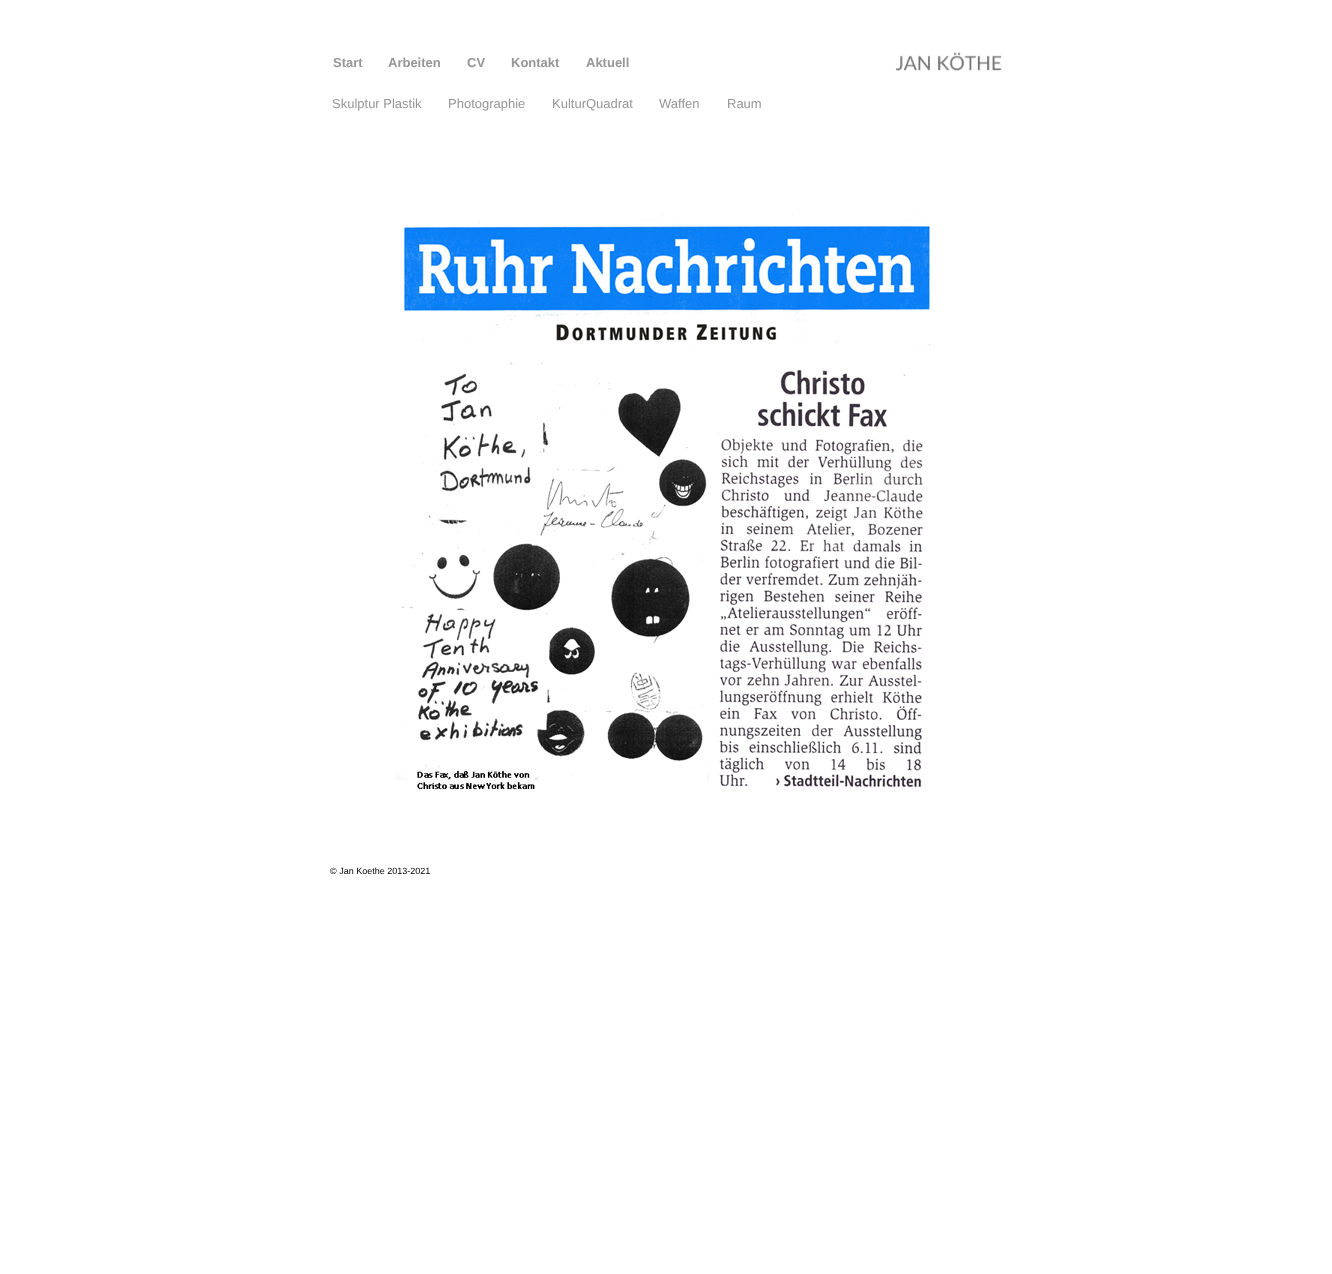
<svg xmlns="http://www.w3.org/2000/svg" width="1332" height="1274">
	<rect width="100%" height="100%" fill="#FFFFFF" />
	<g font-family="Liberation Sans" font-size="13" font-weight="700" fill="#969696">
		<text x="333" y="67">Start</text>
		<text x="388" y="67">Arbeiten</text>
		<text x="467" y="67">CV</text>
		<text x="511" y="67">Kontakt</text>
		<text x="586" y="67">Aktuell</text>
	</g>
	<image x="895" y="52" width="107" height="19" href="assets/img1.png" />
	<g font-family="Liberation Sans" font-size="13" fill="#969696">
		<text x="332" y="108">Skulptur Plastik</text>
		<text x="448" y="108">Photographie</text>
		<text x="552" y="108">KulturQuadrat</text>
		<text x="659" y="108">Waffen</text>
		<text x="727" y="108">Raum</text>
	</g>
	<image x="395" y="211" width="539" height="579" href="assets/img2.png" />
	<text x="330" y="874" font-family="Liberation Sans" font-size="9" fill="#000000">© Jan Koethe 2013-2021</text>
</svg>
